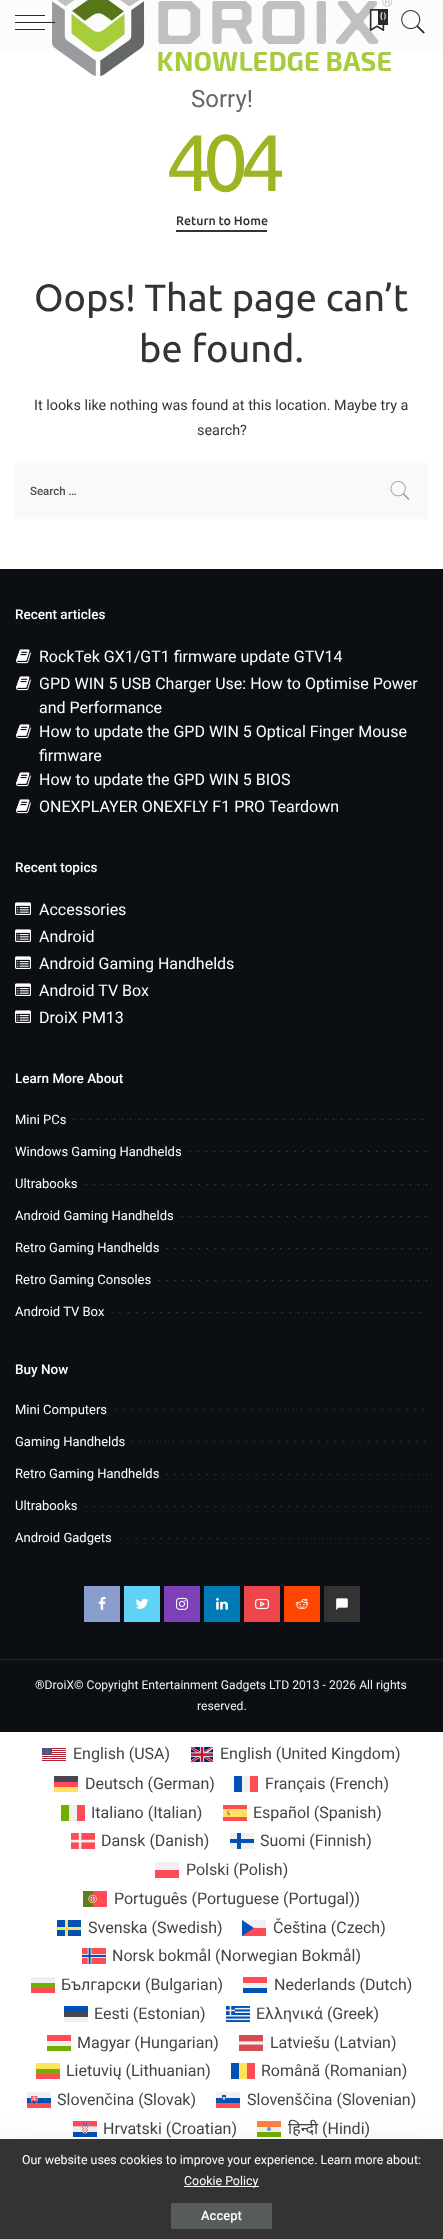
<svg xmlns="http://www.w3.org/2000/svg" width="443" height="2239">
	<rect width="100%" height="100%" fill="#FFFFFF" />
	<rect x="0" y="0" width="443" height="52" fill="#FCFCFC" />
	<image x="52" y="0" width="340" height="76" href="assets/img1.png" />
	<rect x="15" y="22" width="40" height="1" fill="#2B2A29" />
	<rect x="15" y="15" width="30" height="1" fill="#2B2A29" />
	<rect x="15" y="29" width="30" height="1" fill="#2B2A29" />
	<rect x="378" y="9" width="10" height="16" fill="#2B2A29" />
	<text x="380" y="20" font-family="Roboto" font-size="11" fill="#FFFFFF">0</text>
	<image x="369" y="9" width="16" height="22" href="assets/img2.png" />
	<image x="401" y="10" width="24" height="24" href="assets/img3.png" />
	<text x="191" y="107" font-family="Roboto" font-size="24" fill="#666666">Sorry!</text>
	<text x="166" y="191" font-family="Ubuntu" font-size="80" letter-spacing="-8" fill="#9FB423">404</text>
	<rect x="176" y="230" width="91" height="2" fill="#333333" />
	<text x="176" y="225" font-family="Ubuntu" font-size="12.4" font-weight="500" fill="#333333">Return to Home</text>
	<g font-family="Ubuntu" font-size="38" fill="#333333">
		<text x="34" y="311">Oops! That page can’t</text>
		<text x="139" y="362">be found.</text>
	</g>
	<g font-family="Roboto" font-size="14.4" fill="#333333">
		<text x="34" y="410">It looks like nothing was found at this location. Maybe try a</text>
		<text x="197" y="435">search?</text>
	</g>
	<rect x="15" y="463" width="413" height="56" fill="#F9F9F9" />
	<text x="30" y="495" font-family="Roboto" font-size="11.5" font-weight="500" fill="#4B4B4B">Search …</text>
	<image x="390" y="481" width="20" height="19" href="assets/img4.png" />
	<rect x="0" y="569" width="443" height="1163" fill="#0B0E13" />
	<text x="15" y="619" font-family="Roboto" font-size="13.5" font-weight="500" fill="#FFFFFF">Recent articles</text>
	<image x="16" y="649" width="15" height="15" href="assets/img5.png" />
	<text x="39" y="662" font-family="Roboto" font-size="16" fill="#FFFFFF">RockTek GX1/GT1 firmware update GTV14</text>
	<image x="16" y="676" width="15" height="15" href="assets/img5.png" />
	<g font-family="Roboto" font-size="16" fill="#FFFFFF">
		<text x="39" y="689">GPD WIN 5 USB Charger Use: How to Optimise Power</text>
		<text x="39" y="713">and Performance</text>
	</g>
	<image x="16" y="724" width="15" height="15" href="assets/img5.png" />
	<g font-family="Roboto" font-size="16" fill="#FFFFFF">
		<text x="39" y="737">How to update the GPD WIN 5 Optical Finger Mouse</text>
		<text x="39" y="761">firmware</text>
	</g>
	<image x="16" y="772" width="15" height="15" href="assets/img5.png" />
	<text x="39" y="785" font-family="Roboto" font-size="16" fill="#FFFFFF">How to update the GPD WIN 5 BIOS</text>
	<image x="16" y="799" width="15" height="15" href="assets/img5.png" />
	<text x="39" y="812" font-family="Roboto" font-size="16" fill="#FFFFFF">ONEXPLAYER ONEXFLY F1 PRO Teardown</text>
	<text x="15" y="872" font-family="Roboto" font-size="13.5" font-weight="500" fill="#FFFFFF">Recent topics</text>
	<image x="15" y="902" width="16" height="13" href="assets/img6.png" />
	<text x="39" y="915" font-family="Roboto" font-size="16" fill="#FFFFFF">Accessories</text>
	<image x="15" y="929" width="16" height="13" href="assets/img6.png" />
	<text x="39" y="942" font-family="Roboto" font-size="16" fill="#FFFFFF">Android</text>
	<image x="15" y="956" width="16" height="13" href="assets/img6.png" />
	<text x="39" y="969" font-family="Roboto" font-size="16" fill="#FFFFFF">Android Gaming Handhelds</text>
	<image x="15" y="983" width="16" height="13" href="assets/img6.png" />
	<text x="39" y="996" font-family="Roboto" font-size="16" fill="#FFFFFF">Android TV Box</text>
	<image x="15" y="1010" width="16" height="13" href="assets/img6.png" />
	<text x="39" y="1023" font-family="Roboto" font-size="16" fill="#FFFFFF">DroiX PM13</text>
	<text x="15" y="1083" font-family="Roboto" font-size="13.5" font-weight="500" fill="#FFFFFF">Learn More About</text>
	<text x="15" y="1124" font-family="Roboto" font-size="13" fill="#FFFFFF">Mini PCs</text>
	<text x="73" y="1120" font-family="Roboto" font-size="8" letter-spacing="6" fill="#6D6E71">............................................</text>
	<text x="15" y="1156" font-family="Roboto" font-size="13" fill="#FFFFFF">Windows Gaming Handhelds</text>
	<text x="189" y="1152" font-family="Roboto" font-size="8" letter-spacing="6" fill="#6D6E71">..............................</text>
	<text x="15" y="1188" font-family="Roboto" font-size="13" fill="#FFFFFF">Ultrabooks</text>
	<text x="85" y="1185" font-family="Roboto" font-size="8" letter-spacing="6" fill="#6D6E71">...........................................</text>
	<text x="15" y="1220" font-family="Roboto" font-size="13" fill="#FFFFFF">Android Gaming Handhelds</text>
	<text x="181" y="1217" font-family="Roboto" font-size="8" letter-spacing="6" fill="#6D6E71">...............................</text>
	<text x="15" y="1252" font-family="Roboto" font-size="13" fill="#FFFFFF">Retro Gaming Handhelds</text>
	<text x="166" y="1249" font-family="Roboto" font-size="8" letter-spacing="6" fill="#6D6E71">.................................</text>
	<text x="15" y="1284" font-family="Roboto" font-size="13" fill="#FFFFFF">Retro Gaming Consoles</text>
	<text x="158" y="1281" font-family="Roboto" font-size="8" letter-spacing="6" fill="#6D6E71">..................................</text>
	<text x="15" y="1316" font-family="Roboto" font-size="13" fill="#FFFFFF">Android TV Box</text>
	<text x="111" y="1313" font-family="Roboto" font-size="8" letter-spacing="6" fill="#6D6E71">.......................................</text>
	<text x="15" y="1374" font-family="Roboto" font-size="13.5" font-weight="500" fill="#FFFFFF">Buy Now</text>
	<text x="15" y="1414" font-family="Roboto" font-size="13" fill="#FFFFFF">Mini Computers</text>
	<text x="114" y="1410" font-family="Roboto" font-size="8" letter-spacing="6" fill="#6D6E71">.......................................</text>
	<text x="15" y="1446" font-family="Roboto" font-size="13" fill="#FFFFFF">Gaming Handhelds</text>
	<text x="132" y="1442" font-family="Roboto" font-size="8" letter-spacing="6" fill="#6D6E71">.....................................</text>
	<text x="15" y="1478" font-family="Roboto" font-size="13" fill="#FFFFFF">Retro Gaming Handhelds</text>
	<text x="166" y="1475" font-family="Roboto" font-size="8" letter-spacing="6" fill="#6D6E71">.................................</text>
	<text x="15" y="1510" font-family="Roboto" font-size="13" fill="#FFFFFF">Ultrabooks</text>
	<text x="85" y="1507" font-family="Roboto" font-size="8" letter-spacing="6" fill="#6D6E71">...........................................</text>
	<text x="15" y="1542" font-family="Roboto" font-size="13" fill="#FFFFFF">Android Gadgets</text>
	<text x="119" y="1539" font-family="Roboto" font-size="8" letter-spacing="6" fill="#6D6E71">.......................................</text>
	<rect x="84" y="1586" width="36" height="36" fill="#899DCE" />
	<image x="98" y="1596" width="8" height="14" href="assets/img7.png" />
	<rect x="124" y="1586" width="36" height="36" fill="#60D2F5" />
	<image x="135" y="1598" width="14" height="11" href="assets/img8.png" />
	<rect x="164" y="1586" width="36" height="36" fill="#7E40B6" />
	<image x="176" y="1597" width="12" height="13" href="assets/img9.png" />
	<rect x="204" y="1586" width="36" height="36" fill="#007BB6" />
	<image x="216" y="1598" width="12" height="12" href="assets/img10.png" />
	<rect x="244" y="1586" width="36" height="36" fill="#EF464B" />
	<image x="255" y="1598" width="14" height="12" href="assets/img11.png" />
	<rect x="284" y="1586" width="36" height="36" fill="#FF4500" />
	<image x="295" y="1598" width="14" height="12" href="assets/img12.png" />
	<rect x="324" y="1586" width="36" height="36" fill="#333333" />
	<image x="336" y="1598" width="12" height="12" href="assets/img13.png" />
	<rect x="0" y="1659" width="443" height="1" fill="#23262B" />
	<g font-family="Roboto" font-size="12.15" fill="#EFEFEF">
		<text x="35" y="1689">®DroiX© Copyright Entertainment Gadgets LTD 2013 - 2026 All rights</text>
		<text x="197" y="1710">reserved.</text>
	</g>
	<image x="42" y="1748" width="24" height="13" href="assets/img14.png" />
	<text x="73" y="1759" font-family="Roboto" font-size="16" fill="#444444">English (USA)</text>
	<image x="191" y="1747" width="22" height="15" href="assets/img15.png" />
	<text x="220" y="1759" font-family="Roboto" font-size="16" fill="#444444">English (United Kingdom)</text>
	<rect x="54" y="1776" width="24" height="6" fill="#464655" />
	<text x="85" y="1789" font-family="Roboto" font-size="16" fill="#444444">Deutsch (German)</text>
	<rect x="54" y="1782" width="24" height="5" fill="#FF4B55" />
	<rect x="54" y="1787" width="24" height="5" fill="#FFE15A" />
	<rect x="234" y="1776" width="8" height="16" fill="#0052B4" />
	<rect x="242" y="1776" width="8" height="16" fill="#F0F0F0" />
	<rect x="250" y="1776" width="8" height="16" fill="#FF4B55" />
	<text x="265" y="1789" font-family="Roboto" font-size="16" fill="#444444">Français (French)</text>
	<rect x="61" y="1805" width="8" height="16" fill="#73AF00" />
	<rect x="69" y="1805" width="8" height="16" fill="#F0F0F0" />
	<rect x="77" y="1805" width="8" height="16" fill="#FF4B55" />
	<text x="91" y="1818" font-family="Roboto" font-size="16" fill="#444444">Italiano (Italian)</text>
	<image x="223" y="1805" width="24" height="16" href="assets/img16.png" />
	<text x="253" y="1818" font-family="Roboto" font-size="16" fill="#444444">Español (Spanish)</text>
	<image x="71" y="1833" width="24" height="16" href="assets/img17.png" />
	<text x="101" y="1846" font-family="Roboto" font-size="16" fill="#444444">Dansk (Danish)</text>
	<rect x="230" y="1833" width="24" height="16" fill="#F0F0F0" />
	<rect x="230" y="1839" width="24" height="4" fill="#0052B4" />
	<rect x="237" y="1833" width="4" height="16" fill="#0052B4" />
	<text x="260" y="1846" font-family="Roboto" font-size="16" fill="#444444">Suomi (Finnish)</text>
	<rect x="155" y="1862" width="24" height="8" fill="#F0F0F0" />
	<text x="186" y="1875" font-family="Roboto" font-size="16" fill="#444444">Polski (Polish)</text>
	<rect x="155" y="1870" width="24" height="8" fill="#FF4B55" />
	<image x="83" y="1891" width="24" height="16" href="assets/img18.png" />
	<text x="114" y="1904" font-family="Roboto" font-size="16" fill="#444444">Português (Portuguese (Portugal))</text>
	<rect x="57" y="1920" width="24" height="16" fill="#0052B4" />
	<rect x="65" y="1920" width="3" height="16" fill="#FFE15A" />
	<text x="88" y="1933" font-family="Roboto" font-size="16" fill="#444444">Svenska (Swedish)</text>
	<rect x="57" y="1927" width="24" height="3" fill="#FFE15A" />
	<rect x="242" y="1920" width="24" height="8" fill="#F0F0F0" />
	<text x="273" y="1933" font-family="Roboto" font-size="16" fill="#444444">Čeština (Czech)</text>
	<rect x="242" y="1928" width="24" height="8" fill="#FF4B55" />
	<path d="M254 1928L242 1920V1936Z" fill="#0052B4" />
	<image x="82" y="1948" width="24" height="16" href="assets/img19.png" />
	<text x="112" y="1961" font-family="Roboto" font-size="16" fill="#444444">Norsk bokmål (Norwegian Bokmål)</text>
	<rect x="31" y="1977" width="24" height="6" fill="#F0F0F0" />
	<text x="61" y="1990" font-family="Roboto" font-size="16" fill="#444444">Български (Bulgarian)</text>
	<rect x="31" y="1983" width="24" height="5" fill="#73AF00" />
	<rect x="31" y="1988" width="24" height="5" fill="#FF4B55" />
	<rect x="243" y="1977" width="24" height="6" fill="#FF4B55" />
	<text x="274" y="1990" font-family="Roboto" font-size="16" fill="#444444">Nederlands (Dutch)</text>
	<rect x="243" y="1983" width="24" height="5" fill="#F0F0F0" />
	<rect x="243" y="1988" width="24" height="5" fill="#0052B4" />
	<rect x="64" y="2006" width="24" height="6" fill="#0052B4" />
	<text x="94" y="2019" font-family="Roboto" font-size="16" fill="#444444">Eesti (Estonian)</text>
	<rect x="64" y="2012" width="24" height="5" fill="#464655" />
	<rect x="64" y="2017" width="24" height="5" fill="#F0F0F0" />
	<image x="226" y="2006" width="24" height="16" href="assets/img20.png" />
	<text x="256" y="2019" font-family="Roboto" font-size="16" fill="#444444">Ελληνικά (Greek)</text>
	<rect x="47" y="2035" width="24" height="6" fill="#FF4B55" />
	<text x="77" y="2048" font-family="Roboto" font-size="16" fill="#444444">Magyar (Hungarian)</text>
	<rect x="47" y="2041" width="24" height="5" fill="#F0F0F0" />
	<rect x="47" y="2046" width="24" height="5" fill="#73AF00" />
	<image x="239" y="2035" width="24" height="16" href="assets/img21.png" />
	<text x="270" y="2048" font-family="Roboto" font-size="16" fill="#444444">Latviešu (Latvian)</text>
	<rect x="36" y="2063" width="24" height="6" fill="#FFE15A" />
	<text x="66" y="2076" font-family="Roboto" font-size="16" fill="#444444">Lietuvių (Lithuanian)</text>
	<rect x="36" y="2069" width="24" height="5" fill="#73AF00" />
	<rect x="36" y="2074" width="24" height="5" fill="#FF4B55" />
	<rect x="231" y="2063" width="8" height="16" fill="#0052B4" />
	<rect x="239" y="2063" width="8" height="16" fill="#FFE15A" />
	<rect x="247" y="2063" width="8" height="16" fill="#FF4B55" />
	<text x="261" y="2076" font-family="Roboto" font-size="16" fill="#444444">Română (Romanian)</text>
	<image x="27" y="2092" width="24" height="16" href="assets/img22.png" />
	<text x="57" y="2105" font-family="Roboto" font-size="16" fill="#444444">Slovenčina (Slovak)</text>
	<image x="216" y="2092" width="24" height="16" href="assets/img23.png" />
	<text x="247" y="2105" font-family="Roboto" font-size="16" fill="#444444">Slovenščina (Slovenian)</text>
	<image x="73" y="2121" width="24" height="16" href="assets/img24.png" />
	<text x="103" y="2134" font-family="Roboto" font-size="16" fill="#444444">Hrvatski (Croatian)</text>
	<image x="257" y="2121" width="24" height="16" href="assets/img25.png" />
	<text x="288" y="2134" font-family="Noto Sans" font-size="16" fill="#444444">हिन्दी</text>
	<text x="322" y="2134" font-family="Roboto" font-size="16" fill="#444444">(Hindi)</text>
	<rect x="0" y="2143" width="443" height="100" fill="#000000" fill-opacity="0.07" filter="blur(15px)" />
	<rect x="0" y="2139" width="443" height="100" fill="#333333" />
	<text x="22" y="2164" font-family="Roboto" font-size="12.4" fill="#FFFFFF">Our website uses cookies to improve your experience. Learn more about:</text>
	<rect x="184" y="2186" width="75" height="1" fill="#FFFFFF" />
	<text x="184" y="2185" font-family="Roboto" font-size="12.4" fill="#FFFFFF">Cookie Policy</text>
	<rect x="171" y="2203" width="101" height="26" fill="#565C5C" />
	<text x="201" y="2220" font-family="Roboto" font-size="13" font-weight="500" fill="#FFFFFF">Accept</text>
</svg>
